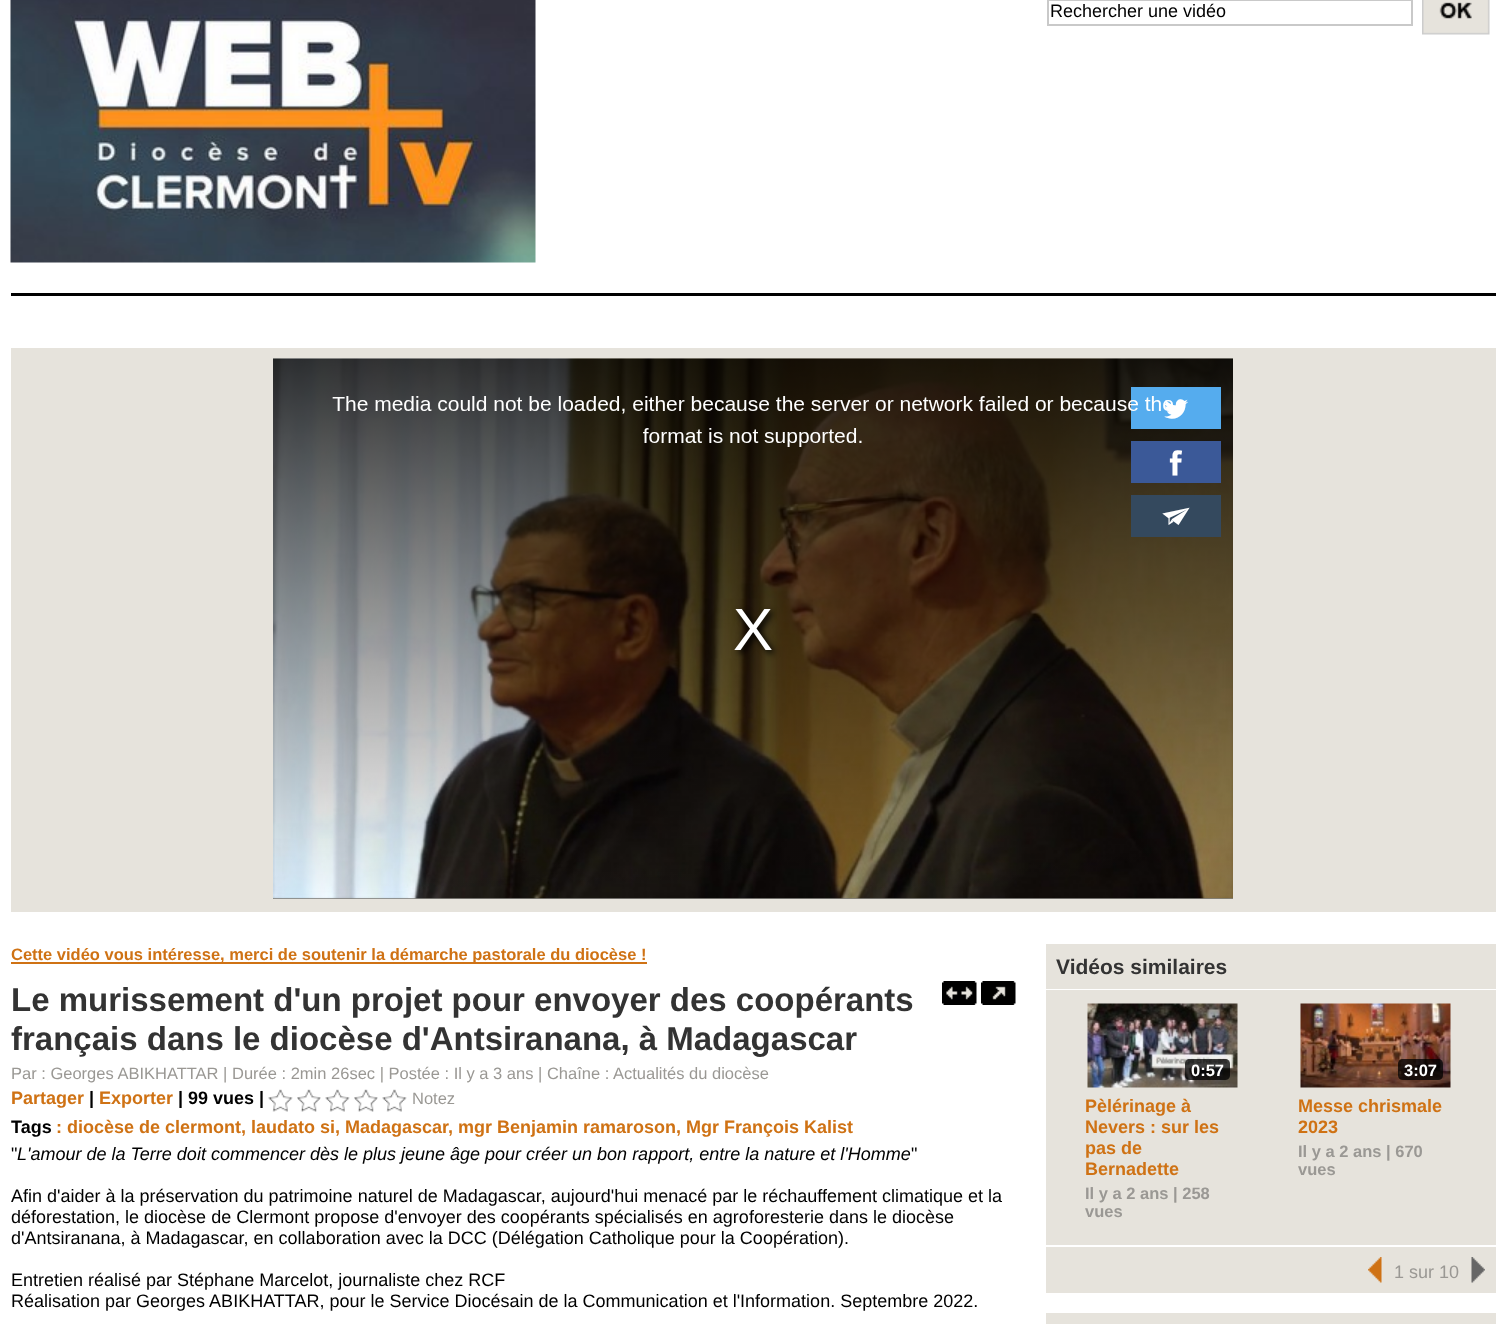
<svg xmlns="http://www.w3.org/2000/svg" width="1505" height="1324">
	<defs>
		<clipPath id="clip1"><rect x="11" y="348" width="1485" height="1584" /></clipPath>
	</defs>
	<rect width="100%" height="100%" fill="#FFFFFF" />
	<image x="10" y="0" width="526" height="263" href="assets/img1.png" />
	<rect x="1048" y="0" width="364" height="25" fill="none" stroke="#C9C9C9" stroke-width="2" />
	<text x="1050" y="17" font-family="Liberation Sans" font-size="18" fill="#000000">Rechercher une vidéo</text>
	<image x="1422" y="0" width="68" height="35" href="assets/img2.png" />
	<rect x="11" y="293" width="1485" height="3" fill="#000000" />
	<rect x="11" y="348" width="1485" height="564" fill="#E6E3DC" />
	<image x="273" y="358" width="960" height="541" href="assets/img3.png" />
	<rect x="11" y="962" width="636" height="2" fill="#CF7214" />
	<text x="11" y="960" font-family="Liberation Sans" font-size="16.5" font-weight="700" fill="#CF7214">Cette vidéo vous intéresse, merci de soutenir la démarche pastorale du diocèse !</text>
	<g font-family="Liberation Sans" font-size="33" font-weight="700" fill="#333333">
		<text x="11" y="1011">Le murissement d'un projet pour envoyer des coopérants</text>
		<text x="11" y="1050">français dans le diocèse d'Antsiranana, à Madagascar</text>
	</g>
	<image x="942" y="981" width="35" height="24" href="assets/img4.png" />
	<image x="981" y="981" width="35" height="24" href="assets/img5.png" />
	<text x="11" y="1079" font-family="Liberation Sans" font-size="16.5" fill="#9A9894">Par : Georges ABIKHATTAR | Durée : 2min 26sec | Postée : Il y a 3 ans | Chaîne : Actualités du diocèse</text>
	<text x="11" y="1104" font-family="Liberation Sans" font-size="18" font-weight="700" fill="#CF7214">Partager</text>
	<text x="89" y="1104" font-family="Liberation Sans" font-size="18" font-weight="700" fill="#000000">|</text>
	<text x="99" y="1104" font-family="Liberation Sans" font-size="18" font-weight="700" fill="#CF7214">Exporter</text>
	<text x="178" y="1104" font-family="Liberation Sans" font-size="18" font-weight="700" fill="#000000">| 99 vues |</text>
	<image x="268" y="1089" width="25" height="23" href="assets/img6.png" />
	<image x="297" y="1089" width="24" height="23" href="assets/img7.png" />
	<image x="325" y="1089" width="25" height="23" href="assets/img6.png" />
	<image x="354" y="1089" width="24" height="23" href="assets/img7.png" />
	<image x="382" y="1089" width="25" height="23" href="assets/img8.png" />
	<text x="412" y="1104" font-family="Liberation Sans" font-size="16.5" fill="#9A9894">Notez</text>
	<g clip-path="url(#clip1)">
		<text x="11" y="1133" font-family="Liberation Sans" font-size="18" font-weight="700" fill="#000000">Tags</text>
	</g>
	<g font-family="Liberation Sans" font-size="18" font-weight="700" fill="#CF7214">
		<text x="56" y="1133">: diocèse de clermont, laudato si, Madagascar</text>
		<text x="448" y="1133">, mgr Benjamin ramaroson, Mgr François Kalist</text>
	</g>
	<text x="11" y="1160" font-family="Liberation Sans" font-size="18" fill="#000000">"</text>
	<text x="17" y="1160" font-family="Liberation Sans" font-size="18" font-style="italic" fill="#000000">L'amour de la Terre doit commencer dès le plus jeune âge pour créer un bon rapport, entre la nature et l'Homme</text>
	<g font-family="Liberation Sans" font-size="18" fill="#000000">
		<text x="911" y="1160">"</text>
		<text x="11" y="1202">Afin d'aider à la préservation du patrimoine naturel de Madagascar, aujourd'hui menacé par le réchauffement climatique et la</text>
		<text x="11" y="1223">déforestation, le diocèse de Clermont propose d'envoyer des coopérants spécialisés en agroforesterie dans le diocèse</text>
		<text x="11" y="1244">d'Antsiranana, à Madagascar, en collaboration avec la DCC (Délégation Catholique pour la Coopération).</text>
		<text x="11" y="1286">Entretien réalisé par Stéphane Marcelot, journaliste chez RCF</text>
		<text x="11" y="1307">Réalisation par Georges ABIKHATTAR, pour le Service Diocésain de la Communication et l'Information. Septembre 2022.</text>
	</g>
	<rect x="1046" y="944" width="450" height="45" fill="#E6E3DC" />
	<text x="1056" y="974" font-family="Liberation Sans" font-size="21" font-weight="700" fill="#333333">Vidéos similaires</text>
	<rect x="1046" y="990" width="450" height="255" fill="#E6E3DC" />
	<image x="1087" y="1003" width="151" height="85" href="assets/img9.png" />
	<rect x="1185" y="1059" width="45" height="21" rx="5" fill="#000000" fill-opacity="0.5" />
	<image x="1185" y="1059" width="45" height="21" href="assets/img10.png" />
	<text x="1191" y="1076" font-family="Liberation Sans" font-size="16.5" font-weight="700" fill="#FFFFFF">0:57</text>
	<g font-family="Liberation Sans" font-size="18" font-weight="700" fill="#CF7214">
		<text x="1085" y="1112">Pèlérinage à</text>
		<text x="1085" y="1133">Nevers : sur les</text>
		<text x="1085" y="1154">pas de</text>
		<text x="1085" y="1175">Bernadette</text>
	</g>
	<g font-family="Liberation Sans" font-size="16.5" font-weight="700" fill="#9A9894">
		<text x="1085" y="1199">Il y a 2 ans | 258</text>
		<text x="1085" y="1217">vues</text>
	</g>
	<image x="1300" y="1003" width="151" height="85" href="assets/img11.png" />
	<rect x="1398" y="1059" width="45" height="21" rx="5" fill="#000000" fill-opacity="0.5" />
	<image x="1398" y="1059" width="45" height="21" href="assets/img12.png" />
	<text x="1404" y="1076" font-family="Liberation Sans" font-size="16.5" font-weight="700" fill="#FFFFFF">3:07</text>
	<g font-family="Liberation Sans" font-size="18" font-weight="700" fill="#CF7214">
		<text x="1298" y="1112">Messe chrismale</text>
		<text x="1298" y="1133">2023</text>
	</g>
	<g font-family="Liberation Sans" font-size="16.5" font-weight="700" fill="#9A9894">
		<text x="1298" y="1157">Il y a 2 ans | 670</text>
		<text x="1298" y="1175">vues</text>
	</g>
	<rect x="1046" y="1247" width="450" height="46" fill="#E6E3DC" />
	<image x="1368" y="1257" width="14" height="26" href="assets/img13.png" />
	<text x="1394" y="1278" font-family="Liberation Sans" font-size="18" fill="#9A9894">1 sur 10</text>
	<image x="1471" y="1257" width="14" height="26" href="assets/img14.png" />
	<rect x="1046" y="1313" width="450" height="11" fill="#E6E3DC" />
</svg>
